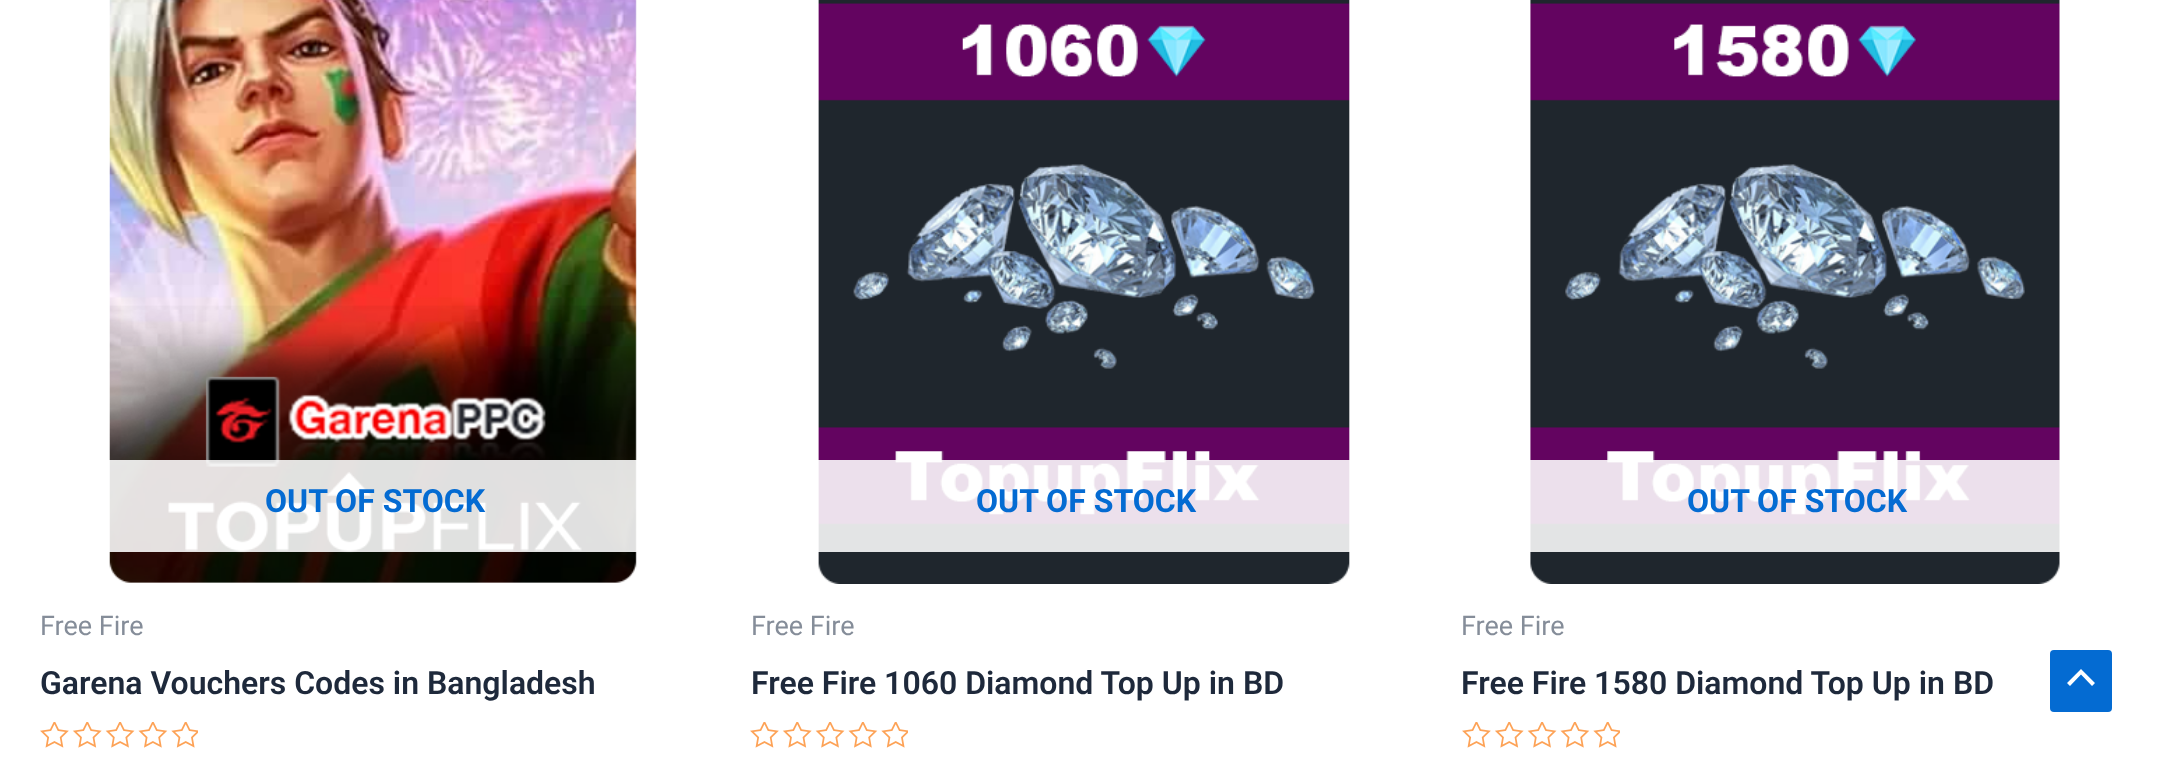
<svg xmlns="http://www.w3.org/2000/svg" width="2172" height="771">
	<rect width="100%" height="100%" fill="#FFFFFF" />
	<image x="109" y="0" width="528" height="583" href="assets/img1.png" />
	<rect x="109" y="460" width="528" height="92" fill="#FFFFFF" fill-opacity="0.88" />
	<text x="265" y="512" font-family="Roboto" font-size="32" font-weight="700" fill="#046BD2">OUT OF STOCK</text>
	<text x="40" y="635" font-family="Roboto" font-size="27" fill="#858D99">Free Fire</text>
	<text x="40" y="694" font-family="Roboto" font-size="32" font-weight="600" fill="#1E293B">Garena Vouchers Codes in Bangladesh</text>
	<image x="40" y="722" width="158" height="26" href="assets/img2.png" />
	<image x="818" y="0" width="532" height="584" href="assets/img3.png" />
	<rect x="818" y="460" width="532" height="92" fill="#FFFFFF" fill-opacity="0.88" />
	<text x="976" y="512" font-family="Roboto" font-size="32" font-weight="700" fill="#046BD2">OUT OF STOCK</text>
	<text x="751" y="635" font-family="Roboto" font-size="27" fill="#858D99">Free Fire</text>
	<text x="751" y="694" font-family="Roboto" font-size="32" font-weight="600" fill="#1E293B">Free Fire 1060 Diamond Top Up in BD</text>
	<image x="750" y="722" width="158" height="26" href="assets/img2.png" />
	<image x="1530" y="0" width="530" height="584" href="assets/img4.png" />
	<rect x="1530" y="460" width="530" height="92" fill="#FFFFFF" fill-opacity="0.88" />
	<text x="1687" y="512" font-family="Roboto" font-size="32" font-weight="700" fill="#046BD2">OUT OF STOCK</text>
	<text x="1461" y="635" font-family="Roboto" font-size="27" fill="#858D99">Free Fire</text>
	<text x="1461" y="694" font-family="Roboto" font-size="32" font-weight="600" fill="#1E293B">Free Fire 1580 Diamond Top Up in BD</text>
	<image x="1462" y="722" width="158" height="26" href="assets/img2.png" />
	<rect x="2050" y="650" width="62" height="62" rx="4" fill="#046BD2" />
	<path d="M2095 683L2081 669L2067 683L2070 686L2081 674.5L2092 686Z" fill="#FFFFFF" />
</svg>
